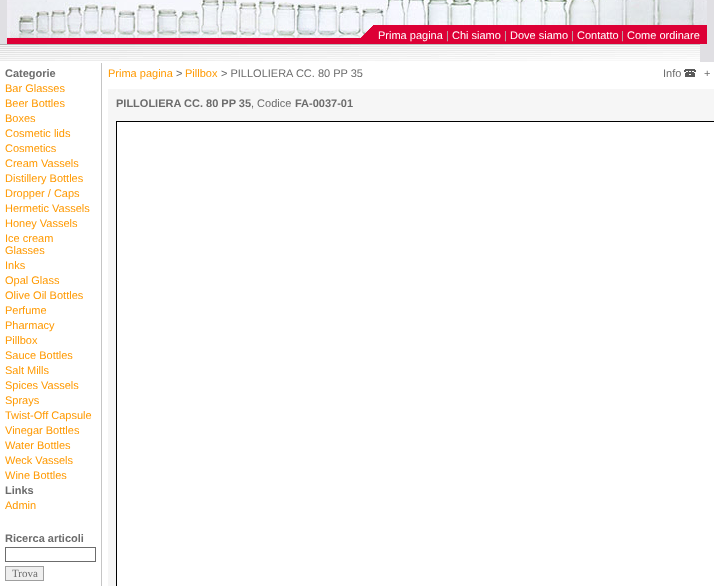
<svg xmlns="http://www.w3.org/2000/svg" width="714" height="586">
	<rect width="100%" height="100%" fill="#E0DFE3" />
	<image x="7" y="0" width="700" height="25" href="assets/img1.png" />
	<image x="7" y="25" width="700" height="19" href="assets/img2.png" />
	<text x="378" y="39" font-family="Liberation Sans" font-size="11" fill="#FFFFFF">Prima pagina</text>
	<text x="446" y="39" font-family="Liberation Sans" font-size="11" fill="#B3B3B3">|</text>
	<text x="452" y="39" font-family="Liberation Sans" font-size="11" fill="#FFFFFF">Chi siamo</text>
	<text x="504" y="39" font-family="Liberation Sans" font-size="11" fill="#B3B3B3">|</text>
	<text x="510" y="39" font-family="Liberation Sans" font-size="11" fill="#FFFFFF">Dove siamo</text>
	<text x="571" y="39" font-family="Liberation Sans" font-size="11" fill="#B3B3B3">|</text>
	<text x="577" y="39" font-family="Liberation Sans" font-size="11" fill="#FFFFFF">Contatto</text>
	<text x="621" y="39" font-family="Liberation Sans" font-size="11" fill="#B3B3B3">|</text>
	<text x="627" y="39" font-family="Liberation Sans" font-size="11" fill="#FFFFFF">Come ordinare</text>
	<image x="0" y="44" width="700" height="18" href="assets/img3.png" />
	<rect x="0" y="62" width="714" height="524" fill="#FFFFFF" />
	<text x="5" y="77" font-family="Liberation Sans" font-size="11" font-weight="700" fill="#6C6C6C">Categorie</text>
	<g font-family="Liberation Sans" font-size="11" fill="#FF9900">
		<text x="5" y="92">Bar Glasses</text>
		<text x="5" y="107">Beer Bottles</text>
		<text x="5" y="122">Boxes</text>
		<text x="5" y="137">Cosmetic lids</text>
		<text x="5" y="152">Cosmetics</text>
		<text x="5" y="167">Cream Vassels</text>
		<text x="5" y="182">Distillery Bottles</text>
		<text x="5" y="197">Dropper / Caps</text>
		<text x="5" y="212">Hermetic Vassels</text>
		<text x="5" y="227">Honey Vassels</text>
		<text x="5" y="242">Ice cream</text>
		<text x="5" y="254">Glasses</text>
		<text x="5" y="269">Inks</text>
		<text x="5" y="284">Opal Glass</text>
		<text x="5" y="299">Olive Oil Bottles</text>
		<text x="5" y="314">Perfume</text>
		<text x="5" y="329">Pharmacy</text>
		<text x="5" y="344">Pillbox</text>
		<text x="5" y="359">Sauce Bottles</text>
		<text x="5" y="374">Salt Mills</text>
		<text x="5" y="389">Spices Vassels</text>
		<text x="5" y="404">Sprays</text>
		<text x="5" y="419">Twist-Off Capsule</text>
		<text x="5" y="434">Vinegar Bottles</text>
		<text x="5" y="449">Water Bottles</text>
		<text x="5" y="464">Weck Vassels</text>
		<text x="5" y="479">Wine Bottles</text>
	</g>
	<text x="5" y="494" font-family="Liberation Sans" font-size="11" font-weight="700" fill="#6C6C6C">Links</text>
	<text x="5" y="509" font-family="Liberation Sans" font-size="11" fill="#FF9900">Admin</text>
	<text x="5" y="542" font-family="Liberation Sans" font-size="11" font-weight="700" fill="#6C6C6C">Ricerca articoli</text>
	<rect x="5.5" y="547.5" width="90" height="14" fill="none" stroke="#6C6C6C" />
	<rect x="5.5" y="566.5" width="38" height="14" fill="#EFEFEF" stroke="#9F9F9F" />
	<text x="12" y="577" font-family="Liberation Serif" font-size="11" fill="#6C6C6C">Trova</text>
	<rect x="101" y="63" width="1" height="523" fill="#C5C5C5" />
	<text x="108" y="77" font-family="Liberation Sans" font-size="11" fill="#FF9900">Prima pagina</text>
	<text x="176" y="77" font-family="Liberation Sans" font-size="11" fill="#6C6C6C">&gt;</text>
	<text x="185" y="77" font-family="Liberation Sans" font-size="11" fill="#FF9900">Pillbox</text>
	<g font-family="Liberation Sans" font-size="11" fill="#6C6C6C">
		<text x="221" y="77">&gt; PILLOLIERA CC. 80 PP 35</text>
		<text x="663" y="77">Info</text>
	</g>
	<image x="684" y="69" width="12" height="8" href="assets/img4.png" />
	<text x="704" y="77" font-family="Liberation Sans" font-size="11" fill="#6C6C6C">+</text>
	<rect x="108" y="89" width="606" height="497" fill="#F6F6F6" />
	<text x="116" y="107" font-family="Liberation Sans" font-size="11" font-weight="700" fill="#6C6C6C">PILLOLIERA CC. 80 PP 35</text>
	<text x="251" y="107" font-family="Liberation Sans" font-size="11" fill="#6C6C6C">, Codice</text>
	<text x="295" y="107" font-family="Liberation Sans" font-size="11" font-weight="700" fill="#6C6C6C">FA-0037-01</text>
	<rect x="116.5" y="121.5" width="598" height="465" fill="none" stroke="#000000" />
	<rect x="117" y="122" width="597" height="464" fill="#FFFFFF" />
</svg>
